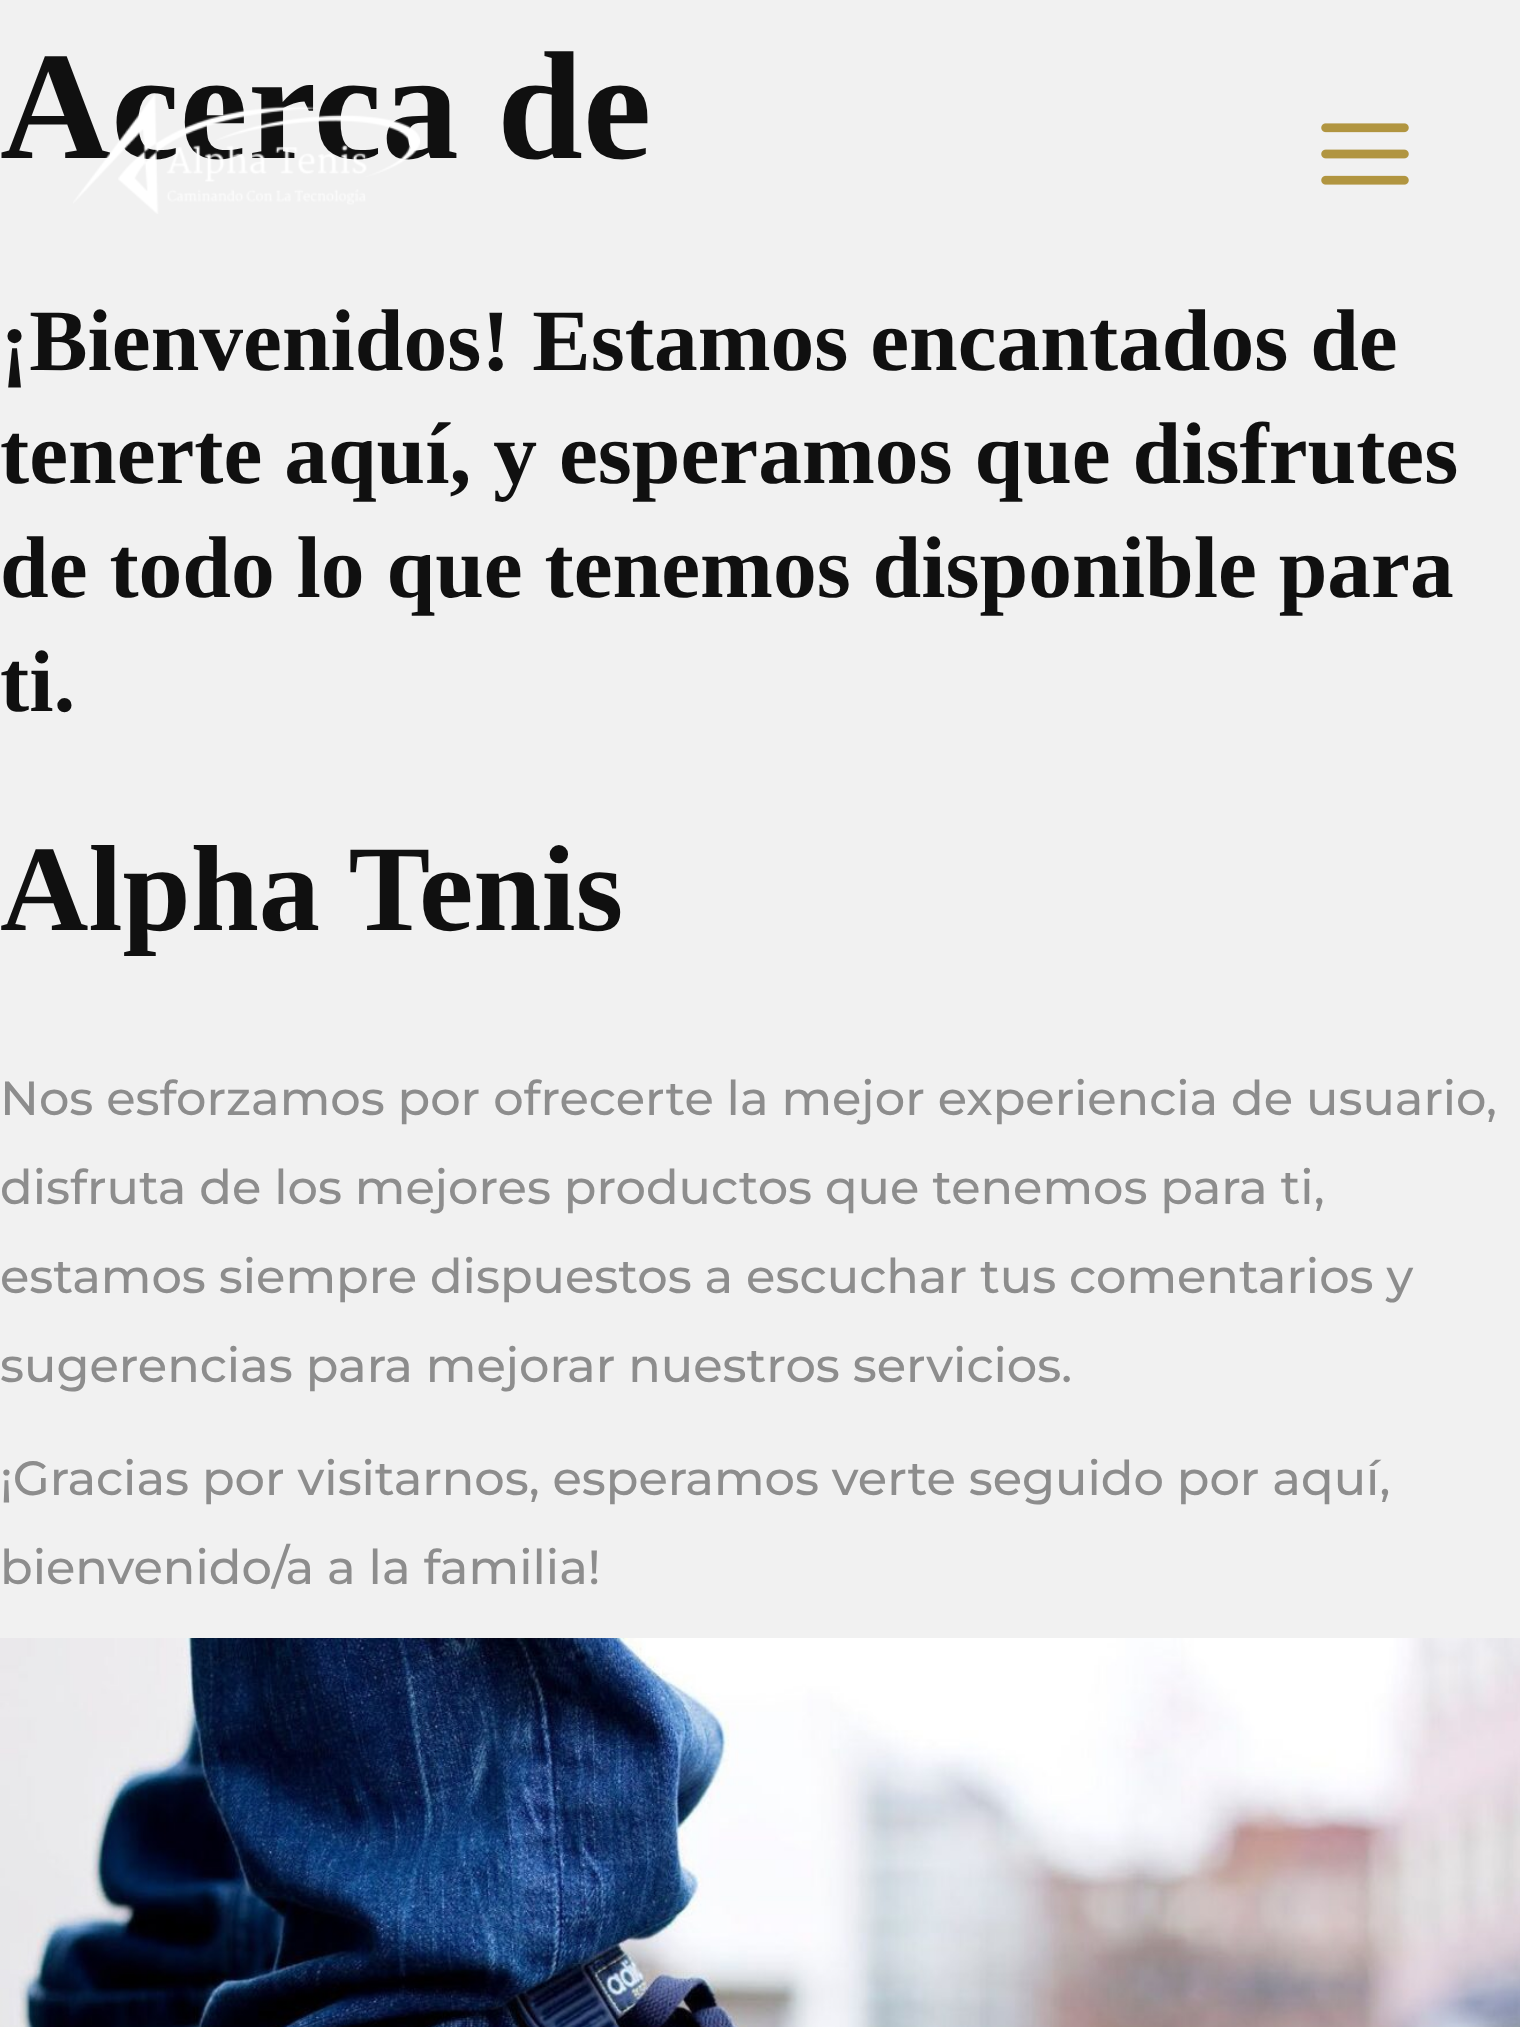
<svg xmlns="http://www.w3.org/2000/svg" width="1520" height="2027">
	<rect width="100%" height="100%" fill="#F1F1F1" />
	<text x="0" y="158" font-family="Liberation Serif" font-size="154" font-weight="700" fill="#101010">Acerca de</text>
	<g font-family="Liberation Serif" font-size="87.5" font-weight="700" fill="#101010">
		<text x="0" y="370">¡Bienvenidos! Estamos encantados de</text>
		<text x="0" y="483">tenerte aquí, y esperamos que disfrutes</text>
		<text x="0" y="597">de todo lo que tenemos disponible para</text>
		<text x="0" y="711">ti.</text>
	</g>
	<text x="0" y="930" font-family="Liberation Serif" font-size="122.5" font-weight="700" fill="#101010">Alpha Tenis</text>
	<g font-family="Montserrat" font-size="47.9" font-weight="100" fill="#8D8D8D">
		<text x="0" y="1115">Nos esforzamos por ofrecerte la mejor experiencia de usuario,</text>
		<text x="0" y="1204">disfruta de los mejores productos que tenemos para ti,</text>
		<text x="0" y="1293">estamos siempre dispuestos a escuchar tus comentarios y</text>
		<text x="0" y="1382">sugerencias para mejorar nuestros servicios.</text>
		<text x="0" y="1495">¡Gracias por visitarnos, esperamos verte seguido por aquí,</text>
		<text x="0" y="1584">bienvenido/a a la familia!</text>
	</g>
	<image x="0" y="1638" width="1520" height="389" href="assets/img1.png" />
	<image x="73" y="93" width="347" height="121" href="assets/img2.png" />
	<image x="1321" y="123" width="88" height="62" href="assets/img3.png" />
</svg>
